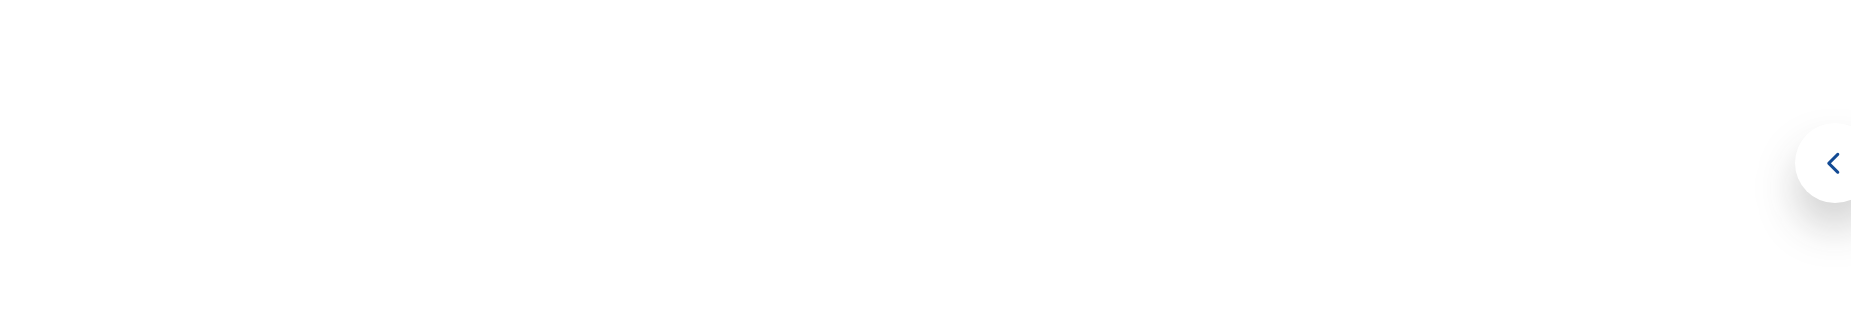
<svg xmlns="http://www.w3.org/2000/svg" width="1851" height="327">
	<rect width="100%" height="100%" fill="#FFFFFF" />
	<rect x="1795" y="148" width="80" height="80" rx="40" fill="#1C1C1C" fill-opacity="0.2" filter="blur(20px)" />
	<circle cx="1835" cy="163" r="40" fill="#FFFFFF" />
	<image x="1827" y="152" width="13" height="22" href="assets/img1.png" />
</svg>
